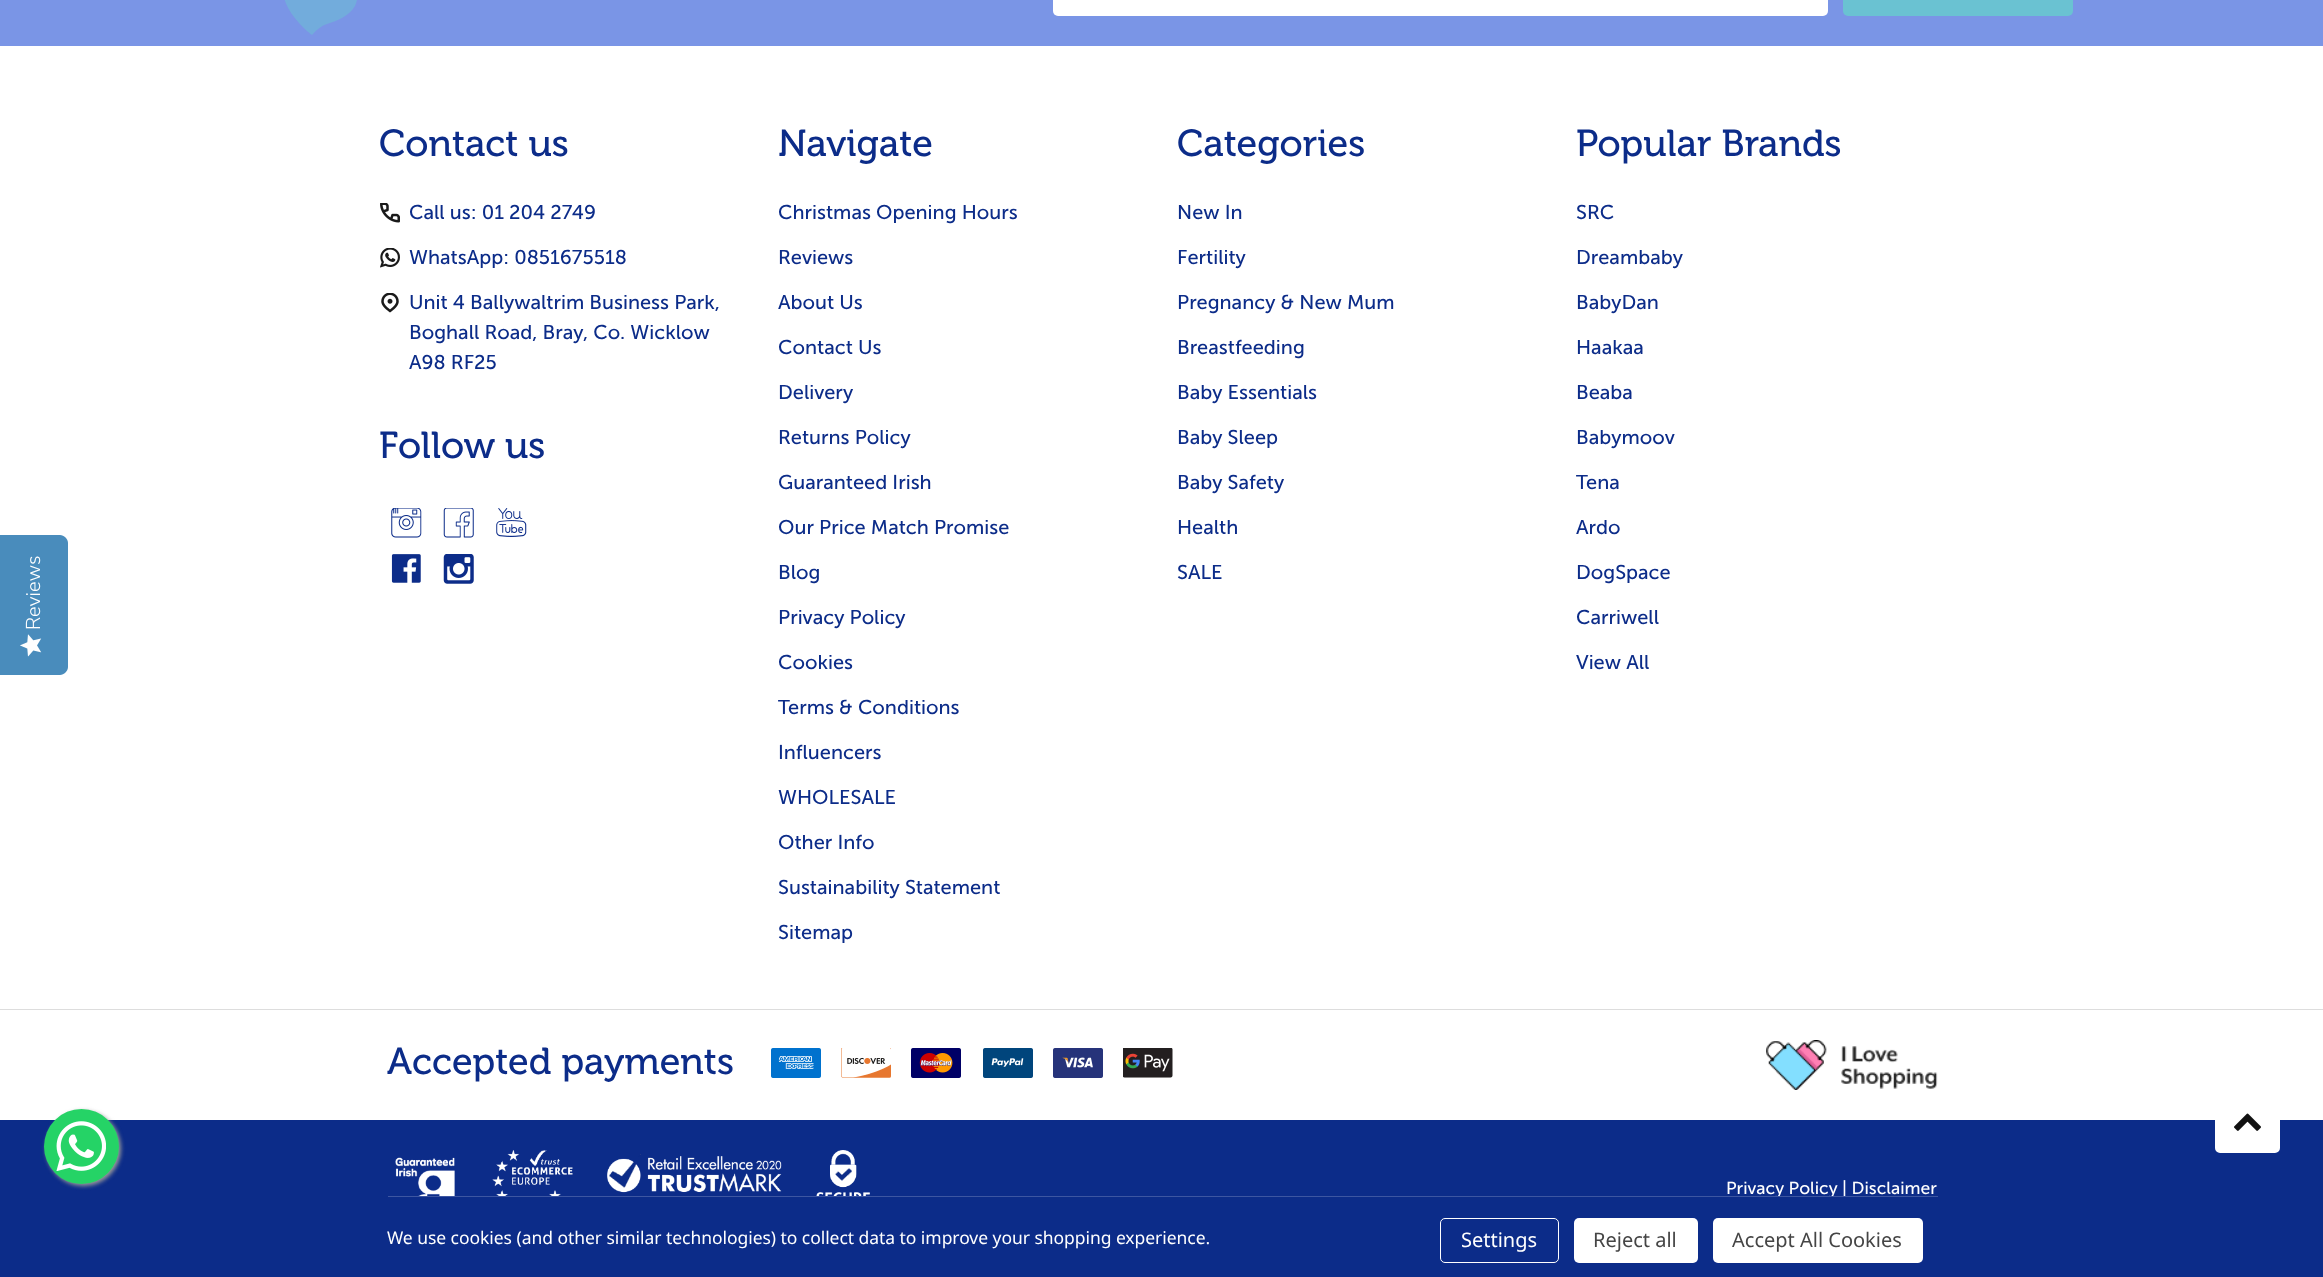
<svg xmlns="http://www.w3.org/2000/svg" width="2323" height="1277">
	<rect width="100%" height="100%" fill="#FFFFFF" />
	<rect x="0" y="0" width="2323" height="46" fill="#7A95E6" />
	<path d="M318-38C324-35 328-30 329-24C335-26 342-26 347-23C358-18 360-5 355 6C349 16 339 20 327 24C321 26 316 30 312 35C312 35 270 4 286-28C292-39 307-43 318-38Z" fill="#72ACDC" />
	<rect x="1053" y="-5" width="775" height="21" rx="5" fill="#FFFFFF" />
	<rect x="1843" y="-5" width="230" height="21" rx="5" fill="#6AC2D2" />
	<path d="M0 675V535H60C64 535 68 539 68 543V667C68 671 64 675 60 675Z" fill="#498CBC" />
	<text x="40" y="630" transform="rotate(-90 40 630)" font-family="Nunito Sans" font-size="20" font-weight="300" fill="#FFFFFF">Reviews</text>
	<image x="20" y="634" width="22" height="23" href="assets/img1.png" />
	<text x="379" y="156" font-family="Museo" font-size="37.5" fill="#0C2C89">Contact us</text>
	<image x="380" y="203" width="20" height="20" href="assets/img2.png" />
	<text x="409" y="219" font-family="'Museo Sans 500'" font-size="20" fill="#0C2C89">Call us: 01 204 2749</text>
	<image x="380" y="248" width="20" height="20" href="assets/img3.png" />
	<text x="409" y="264" font-family="'Museo Sans 500'" font-size="20" fill="#0C2C89">WhatsApp: 0851675518</text>
	<image x="381" y="293" width="18" height="20" href="assets/img4.png" />
	<g font-family="'Museo Sans 500'" font-size="20" fill="#0C2C89">
		<text x="409" y="309">Unit 4 Ballywaltrim Business Park,</text>
		<text x="409" y="339">Boghall Road, Bray, Co. Wicklow</text>
		<text x="409" y="369">A98 RF25</text>
	</g>
	<text x="379" y="458" font-family="Museo" font-size="37.5" fill="#0C2C89">Follow us</text>
	<image x="391" y="508" width="31" height="30" href="assets/img5.png" />
	<image x="443" y="508" width="31" height="30" href="assets/img6.png" />
	<image x="496" y="508" width="31" height="29" href="assets/img7.png" />
	<image x="391" y="554" width="30" height="29" href="assets/img8.png" />
	<image x="443" y="554" width="31" height="30" href="assets/img9.png" />
	<text x="778" y="156" font-family="Museo" font-size="37.5" fill="#0C2C89">Navigate</text>
	<g font-family="'Museo Sans 500'" font-size="20" fill="#0C2C89">
		<text x="778" y="219">Christmas Opening Hours</text>
		<text x="778" y="264">Reviews</text>
		<text x="778" y="309">About Us</text>
		<text x="778" y="354">Contact Us</text>
		<text x="778" y="399">Delivery</text>
		<text x="778" y="444">Returns Policy</text>
		<text x="778" y="489">Guaranteed Irish</text>
		<text x="778" y="534">Our Price Match Promise</text>
		<text x="778" y="579">Blog</text>
		<text x="778" y="624">Privacy Policy</text>
		<text x="778" y="669">Cookies</text>
		<text x="778" y="714">Terms &amp; Conditions</text>
		<text x="778" y="759">Influencers</text>
		<text x="778" y="804">WHOLESALE</text>
		<text x="778" y="849">Other Info</text>
		<text x="778" y="894">Sustainability Statement</text>
		<text x="778" y="939">Sitemap</text>
	</g>
	<text x="1177" y="156" font-family="Museo" font-size="37.5" fill="#0C2C89">Categories</text>
	<g font-family="'Museo Sans 500'" font-size="20" fill="#0C2C89">
		<text x="1177" y="219">New In</text>
		<text x="1177" y="264">Fertility</text>
		<text x="1177" y="309">Pregnancy &amp; New Mum</text>
		<text x="1177" y="354">Breastfeeding</text>
		<text x="1177" y="399">Baby Essentials</text>
		<text x="1177" y="444">Baby Sleep</text>
		<text x="1177" y="489">Baby Safety</text>
		<text x="1177" y="534">Health</text>
		<text x="1177" y="579">SALE</text>
	</g>
	<text x="1576" y="156" font-family="Museo" font-size="37.5" fill="#0C2C89">Popular Brands</text>
	<g font-family="'Museo Sans 500'" font-size="20" fill="#0C2C89">
		<text x="1576" y="219">SRC</text>
		<text x="1576" y="264">Dreambaby</text>
		<text x="1576" y="309">BabyDan</text>
		<text x="1576" y="354">Haakaa</text>
		<text x="1576" y="399">Beaba</text>
		<text x="1576" y="444">Babymoov</text>
		<text x="1576" y="489">Tena</text>
		<text x="1576" y="534">Ardo</text>
		<text x="1576" y="579">DogSpace</text>
		<text x="1576" y="624">Carriwell</text>
		<text x="1576" y="669">View All</text>
	</g>
	<rect x="0" y="1009" width="2323" height="1" fill="#DDDDDD" />
	<text x="387" y="1074" font-family="Museo" font-size="37.5" fill="#0C2C89">Accepted payments</text>
	<image x="771" y="1048" width="50" height="30" href="assets/img10.png" />
	<image x="841" y="1048" width="50" height="30" href="assets/img11.png" />
	<image x="911" y="1048" width="50" height="30" href="assets/img12.png" />
	<image x="983" y="1048" width="50" height="30" href="assets/img13.png" />
	<image x="1053" y="1048" width="50" height="30" href="assets/img14.png" />
	<image x="1123" y="1048" width="50" height="30" href="assets/img15.png" />
	<image x="1766" y="1040" width="172" height="50" href="assets/img16.png" />
	<rect x="0" y="1120" width="2323" height="76" fill="#0C2C89" />
	<image x="395" y="1157" width="60" height="39" href="assets/img17.png" />
	<image x="492" y="1150" width="81" height="46" href="assets/img18.png" />
	<image x="607" y="1154" width="175" height="39" href="assets/img19.png" />
	<image x="816" y="1150" width="54" height="46" href="assets/img20.png" />
	<text x="1726" y="1194" font-family="'Museo Sans 500'" font-size="17.5" fill="#FFFFFF">Privacy Policy | Disclaimer</text>
	<rect x="46" y="1111" width="75" height="75" rx="37.5" fill="#999999" filter="blur(2px)" />
	<circle cx="81.5" cy="1146.5" r="37.5" fill="#25D366" />
	<image x="56" y="1121" width="50" height="50" href="assets/img21.png" />
	<rect x="2216.5" y="1089.5" width="62" height="62" rx="3.5" fill="#FFFFFF" stroke="#FFFFFF" stroke-width="3" />
	<image x="2234" y="1113" width="27" height="18" href="assets/img22.png" />
	<rect x="0" y="1196" width="2323" height="81" fill="#0C2C89" />
	<rect x="388" y="1196" width="1550" height="1" fill="#3D56A1" />
	<text x="387" y="1244" font-family="Noto Sans" font-size="17.5" letter-spacing="-0.05" fill="#FFFFFF">We use cookies (and other similar technologies) to collect data to improve your shopping experience.</text>
	<rect x="1440.5" y="1218.5" width="118" height="44" rx="4.5" fill="none" stroke="#FFFFFF" />
	<text x="1461" y="1247" font-family="Noto Sans" font-size="20" fill="#FFFFFF">Settings</text>
	<rect x="1574" y="1218" width="124" height="45" rx="5" fill="#FFFFFF" />
	<text x="1593" y="1247" font-family="Noto Sans" font-size="20" fill="#454545">Reject all</text>
	<rect x="1713" y="1218" width="210" height="45" rx="5" fill="#FFFFFF" />
	<text x="1732" y="1247" font-family="Noto Sans" font-size="20" fill="#454545">Accept All Cookies</text>
</svg>
